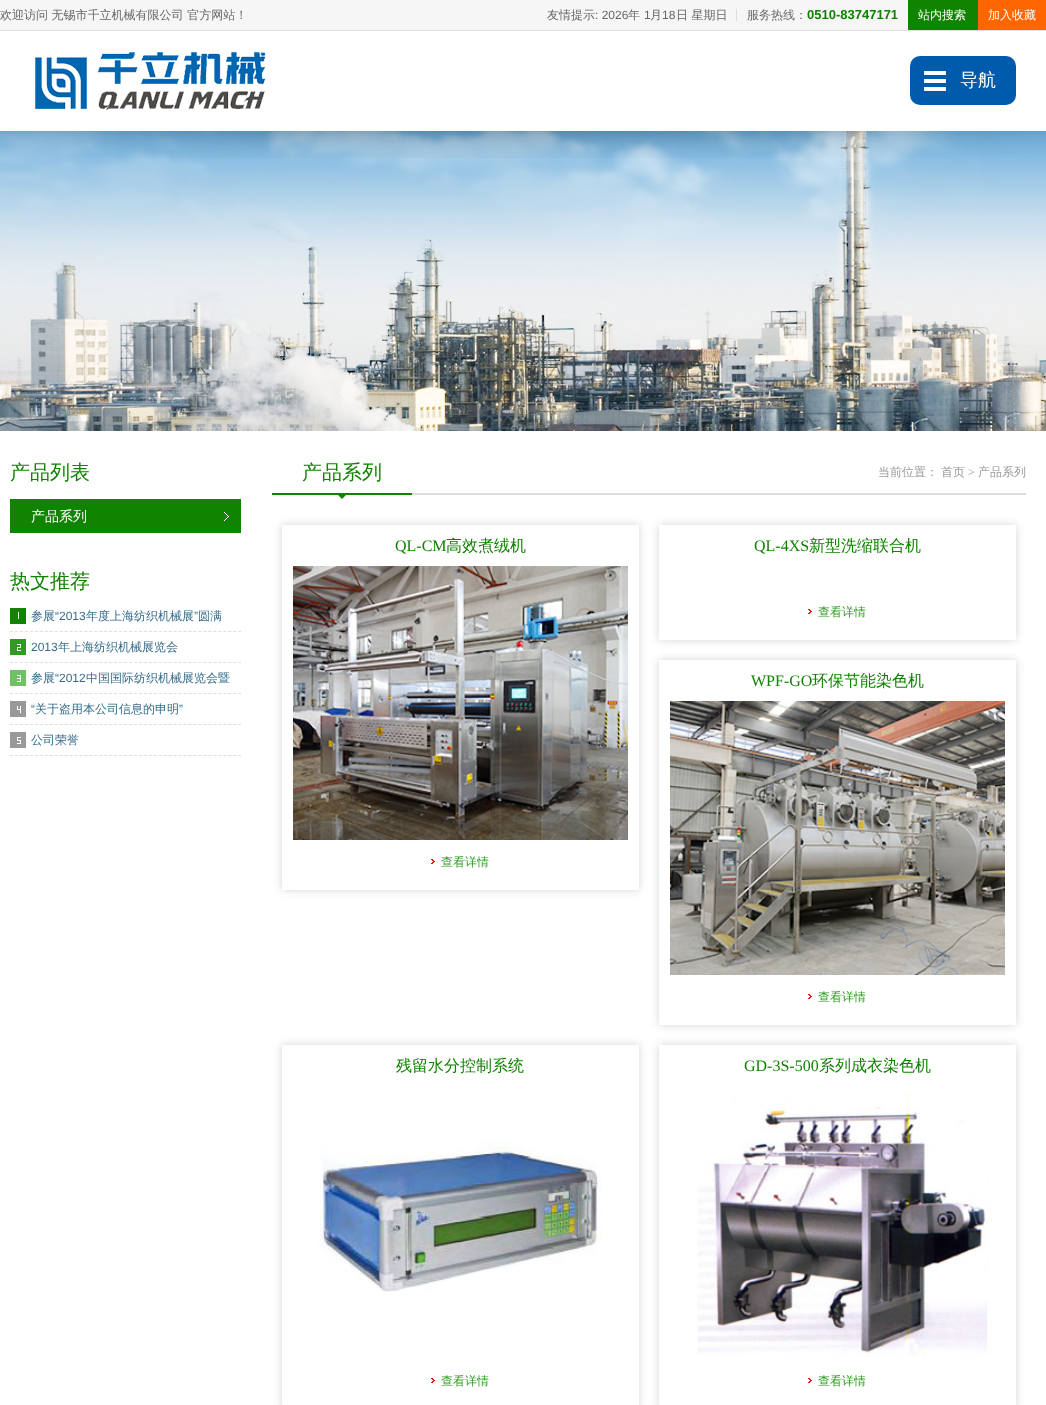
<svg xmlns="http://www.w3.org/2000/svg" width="1046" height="1405">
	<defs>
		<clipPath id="clip1"><path d="M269 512H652V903H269ZM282 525H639V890H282Z" clip-rule="evenodd" /></clipPath>
		<clipPath id="clip2"><path d="M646 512H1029V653H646ZM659 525H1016V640H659Z" clip-rule="evenodd" /></clipPath>
		<clipPath id="clip3"><path d="M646 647H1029V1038H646ZM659 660H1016V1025H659Z" clip-rule="evenodd" /></clipPath>
		<clipPath id="clip4"><path d="M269 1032H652V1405H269ZM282 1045H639V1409H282Z" clip-rule="evenodd" /></clipPath>
		<clipPath id="clip5"><path d="M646 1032H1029V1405H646ZM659 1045H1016V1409H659Z" clip-rule="evenodd" /></clipPath>
	</defs>
	<rect width="100%" height="100%" fill="#FFFFFF" />
	<rect x="0" y="0" width="908" height="30" fill="#F6F6F6" />
	<rect x="0" y="30" width="1046" height="1" fill="#DEDEDE" />
	<g font-family="WenQuanYi Zen Hei" font-size="12" font-weight="500" fill="#666666">
		<text x="0" y="19">欢迎访问 无锡市千立机械有限公司 官方网站！</text>
		<text x="547" y="19">友情提示</text>
	</g>
	<text x="595" y="19" font-family="Liberation Sans" font-size="12" fill="#666666">: 2026</text>
	<text x="628" y="19" font-family="WenQuanYi Zen Hei" font-size="12" font-weight="500" fill="#666666">年</text>
	<text x="644" y="19" font-family="Liberation Sans" font-size="12" fill="#666666">1</text>
	<text x="650" y="19" font-family="WenQuanYi Zen Hei" font-size="12" font-weight="500" fill="#666666">月</text>
	<text x="662" y="19" font-family="Liberation Sans" font-size="12" fill="#666666">18</text>
	<text x="676" y="19" font-family="WenQuanYi Zen Hei" font-size="12" font-weight="500" fill="#666666">日 星期日</text>
	<rect x="736" y="9" width="1" height="12" fill="#DEDEDE" />
	<text x="747" y="19" font-family="WenQuanYi Zen Hei" font-size="12" font-weight="500" fill="#666666">服务热线：</text>
	<text x="807" y="19" font-family="Liberation Sans" font-size="13" font-weight="700" fill="#108201">0510-83747171</text>
	<rect x="908" y="0" width="70" height="30" fill="#108300" />
	<text x="918" y="19" font-family="WenQuanYi Zen Hei" font-size="12" font-weight="500" fill="#FFFFFF">站内搜索</text>
	<rect x="978" y="0" width="68" height="30" fill="#FF6600" />
	<text x="988" y="19" font-family="WenQuanYi Zen Hei" font-size="12" font-weight="500" fill="#FFFFFF">加入收藏</text>
	<image x="35" y="52" width="231" height="59" href="assets/img1.png" />
	<rect x="910" y="56" width="106" height="49" rx="10" fill="#005BAC" />
	<image x="924" y="71" width="22" height="20" href="assets/img2.png" />
	<text x="960" y="86" font-family="WenQuanYi Zen Hei" font-size="18" font-weight="500" fill="#FFFFFF">导航</text>
	<image x="0" y="131" width="1046" height="300" href="assets/img4.png" />
	<image x="0" y="131" width="1046" height="27" href="assets/img3.png" />
	<text x="10" y="479" font-family="WenQuanYi Zen Hei" font-size="20" font-weight="500" fill="#108201">产品列表</text>
	<rect x="10" y="499" width="231" height="34" fill="#108300" />
	<image x="224" y="512" width="5" height="9" href="assets/img5.png" />
	<text x="31" y="521" font-family="WenQuanYi Zen Hei" font-size="14" font-weight="500" fill="#FFFFFF">产品系列</text>
	<text x="10" y="588" font-family="WenQuanYi Zen Hei" font-size="20" font-weight="500" fill="#108201">热文推荐</text>
	<path d="M10 631.5H241" fill="none" stroke="#DEDEDE" stroke-dasharray="3 1.96" />
	<rect x="10" y="608" width="16" height="16" fill="#108300" />
	<rect x="18" y="612" width="1" height="7" fill="#FFFFFF" />
	<text x="31" y="620" font-family="WenQuanYi Zen Hei" font-size="12" font-weight="500" fill="#366C8B">参展</text>
	<text x="55" y="620" font-family="Liberation Sans" font-size="12" fill="#366C8B">“2013</text>
	<text x="86" y="620" font-family="WenQuanYi Zen Hei" font-size="12" font-weight="500" fill="#366C8B">年度上海纺织机械展</text>
	<text x="194" y="620" font-family="Liberation Sans" font-size="12" fill="#366C8B">”</text>
	<text x="198" y="620" font-family="WenQuanYi Zen Hei" font-size="12" font-weight="500" fill="#366C8B">圆满</text>
	<path d="M10 662.5H241" fill="none" stroke="#DEDEDE" stroke-dasharray="3 1.96" />
	<rect x="10" y="639" width="16" height="16" fill="#2F9C21" />
	<image x="17" y="644" width="4" height="7" href="assets/img6.png" />
	<text x="31" y="651" font-family="Liberation Sans" font-size="12" fill="#366C8B">2013</text>
	<text x="58" y="651" font-family="WenQuanYi Zen Hei" font-size="12" font-weight="500" fill="#366C8B">年上海纺织机械展览会</text>
	<path d="M10 693.5H241" fill="none" stroke="#DEDEDE" stroke-dasharray="3 1.96" />
	<rect x="10" y="670" width="16" height="16" fill="#6FC264" />
	<image x="17" y="675" width="4" height="7" href="assets/img7.png" />
	<text x="31" y="682" font-family="WenQuanYi Zen Hei" font-size="12" font-weight="500" fill="#366C8B">参展</text>
	<text x="55" y="682" font-family="Liberation Sans" font-size="12" fill="#366C8B">“2012</text>
	<text x="86" y="682" font-family="WenQuanYi Zen Hei" font-size="12" font-weight="500" fill="#366C8B">中国国际纺织机械展览会暨</text>
	<path d="M10 724.5H241" fill="none" stroke="#DEDEDE" stroke-dasharray="3 1.96" />
	<rect x="10" y="701" width="16" height="16" fill="#999999" />
	<image x="17" y="706" width="4" height="7" href="assets/img8.png" />
	<text x="31" y="713" font-family="Liberation Sans" font-size="12" fill="#366C8B">“</text>
	<text x="35" y="713" font-family="WenQuanYi Zen Hei" font-size="12" font-weight="500" fill="#366C8B">关于盗用本公司信息的申明</text>
	<text x="179" y="713" font-family="Liberation Sans" font-size="12" fill="#366C8B">”</text>
	<path d="M10 755.5H241" fill="none" stroke="#DEDEDE" stroke-dasharray="3 1.96" />
	<rect x="10" y="732" width="16" height="16" fill="#999999" />
	<image x="17" y="737" width="4" height="7" href="assets/img9.png" />
	<text x="31" y="744" font-family="WenQuanYi Zen Hei" font-size="12" font-weight="500" fill="#366C8B">公司荣誉</text>
	<rect x="412" y="493" width="614" height="2" fill="#DEDEDE" />
	<rect x="272" y="493" width="140" height="2" fill="#108300" />
	<text x="302" y="479" font-family="WenQuanYi Zen Hei" font-size="20" font-weight="500" fill="#108201">产品系列</text>
	<path d="M336 493H348L342 499Z" fill="#108300" />
	<g font-family="WenQuanYi Zen Hei" font-size="12" font-weight="500" fill="#999999">
		<text x="878" y="476">当前位置：</text>
		<text x="941" y="476">首页</text>
	</g>
	<text x="968" y="476" font-family="Liberation Serif" font-size="12" fill="#999999">&gt;</text>
	<text x="978" y="476" font-family="WenQuanYi Zen Hei" font-size="12" font-weight="500" fill="#999999">产品系列</text>
	<g clip-path="url(#clip1)">
		<rect x="282" y="525" width="357" height="365" fill="#231815" fill-opacity="0.18" filter="blur(4px)" />
	</g>
	<text x="395" y="551" font-family="Liberation Serif" font-size="16" fill="#108201">QL-CM</text>
	<text x="446" y="551" font-family="WenQuanYi Zen Hei" font-size="16" font-weight="500" fill="#108201">高效煮绒机</text>
	<image x="293" y="566" width="335" height="274" href="assets/img10.png" />
	<image x="431" y="859" width="4" height="5" href="assets/img11.png" />
	<text x="441" y="866" font-family="WenQuanYi Zen Hei" font-size="12" font-weight="500" fill="#2F9C21">查看详情</text>
	<g clip-path="url(#clip2)">
		<rect x="659" y="525" width="357" height="115" fill="#231815" fill-opacity="0.18" filter="blur(4px)" />
	</g>
	<text x="754" y="551" font-family="Liberation Serif" font-size="16" fill="#108201">QL-4XS</text>
	<text x="809" y="551" font-family="WenQuanYi Zen Hei" font-size="16" font-weight="500" fill="#108201">新型洗缩联合机</text>
	<image x="808" y="609" width="4" height="5" href="assets/img11.png" />
	<text x="818" y="616" font-family="WenQuanYi Zen Hei" font-size="12" font-weight="500" fill="#2F9C21">查看详情</text>
	<g clip-path="url(#clip3)">
		<rect x="659" y="660" width="357" height="365" fill="#231815" fill-opacity="0.18" filter="blur(4px)" />
	</g>
	<text x="751" y="686" font-family="Liberation Serif" font-size="16" fill="#108201">WPF-GO</text>
	<text x="812" y="686" font-family="WenQuanYi Zen Hei" font-size="16" font-weight="500" fill="#108201">环保节能染色机</text>
	<image x="670" y="701" width="335" height="274" href="assets/img12.png" />
	<image x="808" y="994" width="4" height="5" href="assets/img11.png" />
	<text x="818" y="1001" font-family="WenQuanYi Zen Hei" font-size="12" font-weight="500" fill="#2F9C21">查看详情</text>
	<g clip-path="url(#clip4)">
		<rect x="282" y="1045" width="357" height="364" fill="#231815" fill-opacity="0.18" filter="blur(4px)" />
	</g>
	<text x="396" y="1071" font-family="WenQuanYi Zen Hei" font-size="16" font-weight="500" fill="#108201">残留水分控制系统</text>
	<image x="319" y="1140" width="283" height="152" href="assets/img13.png" />
	<image x="431" y="1378" width="4" height="5" href="assets/img11.png" />
	<text x="441" y="1385" font-family="WenQuanYi Zen Hei" font-size="12" font-weight="500" fill="#2F9C21">查看详情</text>
	<g clip-path="url(#clip5)">
		<rect x="659" y="1045" width="357" height="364" fill="#231815" fill-opacity="0.18" filter="blur(4px)" />
	</g>
	<text x="744" y="1071" font-family="Liberation Serif" font-size="16" fill="#108201">GD-3S-500</text>
	<text x="819" y="1071" font-family="WenQuanYi Zen Hei" font-size="16" font-weight="500" fill="#108201">系列成衣染色机</text>
	<image x="697" y="1094" width="295" height="265" href="assets/img14.png" />
	<image x="808" y="1378" width="4" height="5" href="assets/img11.png" />
	<text x="818" y="1385" font-family="WenQuanYi Zen Hei" font-size="12" font-weight="500" fill="#2F9C21">查看详情</text>
</svg>
